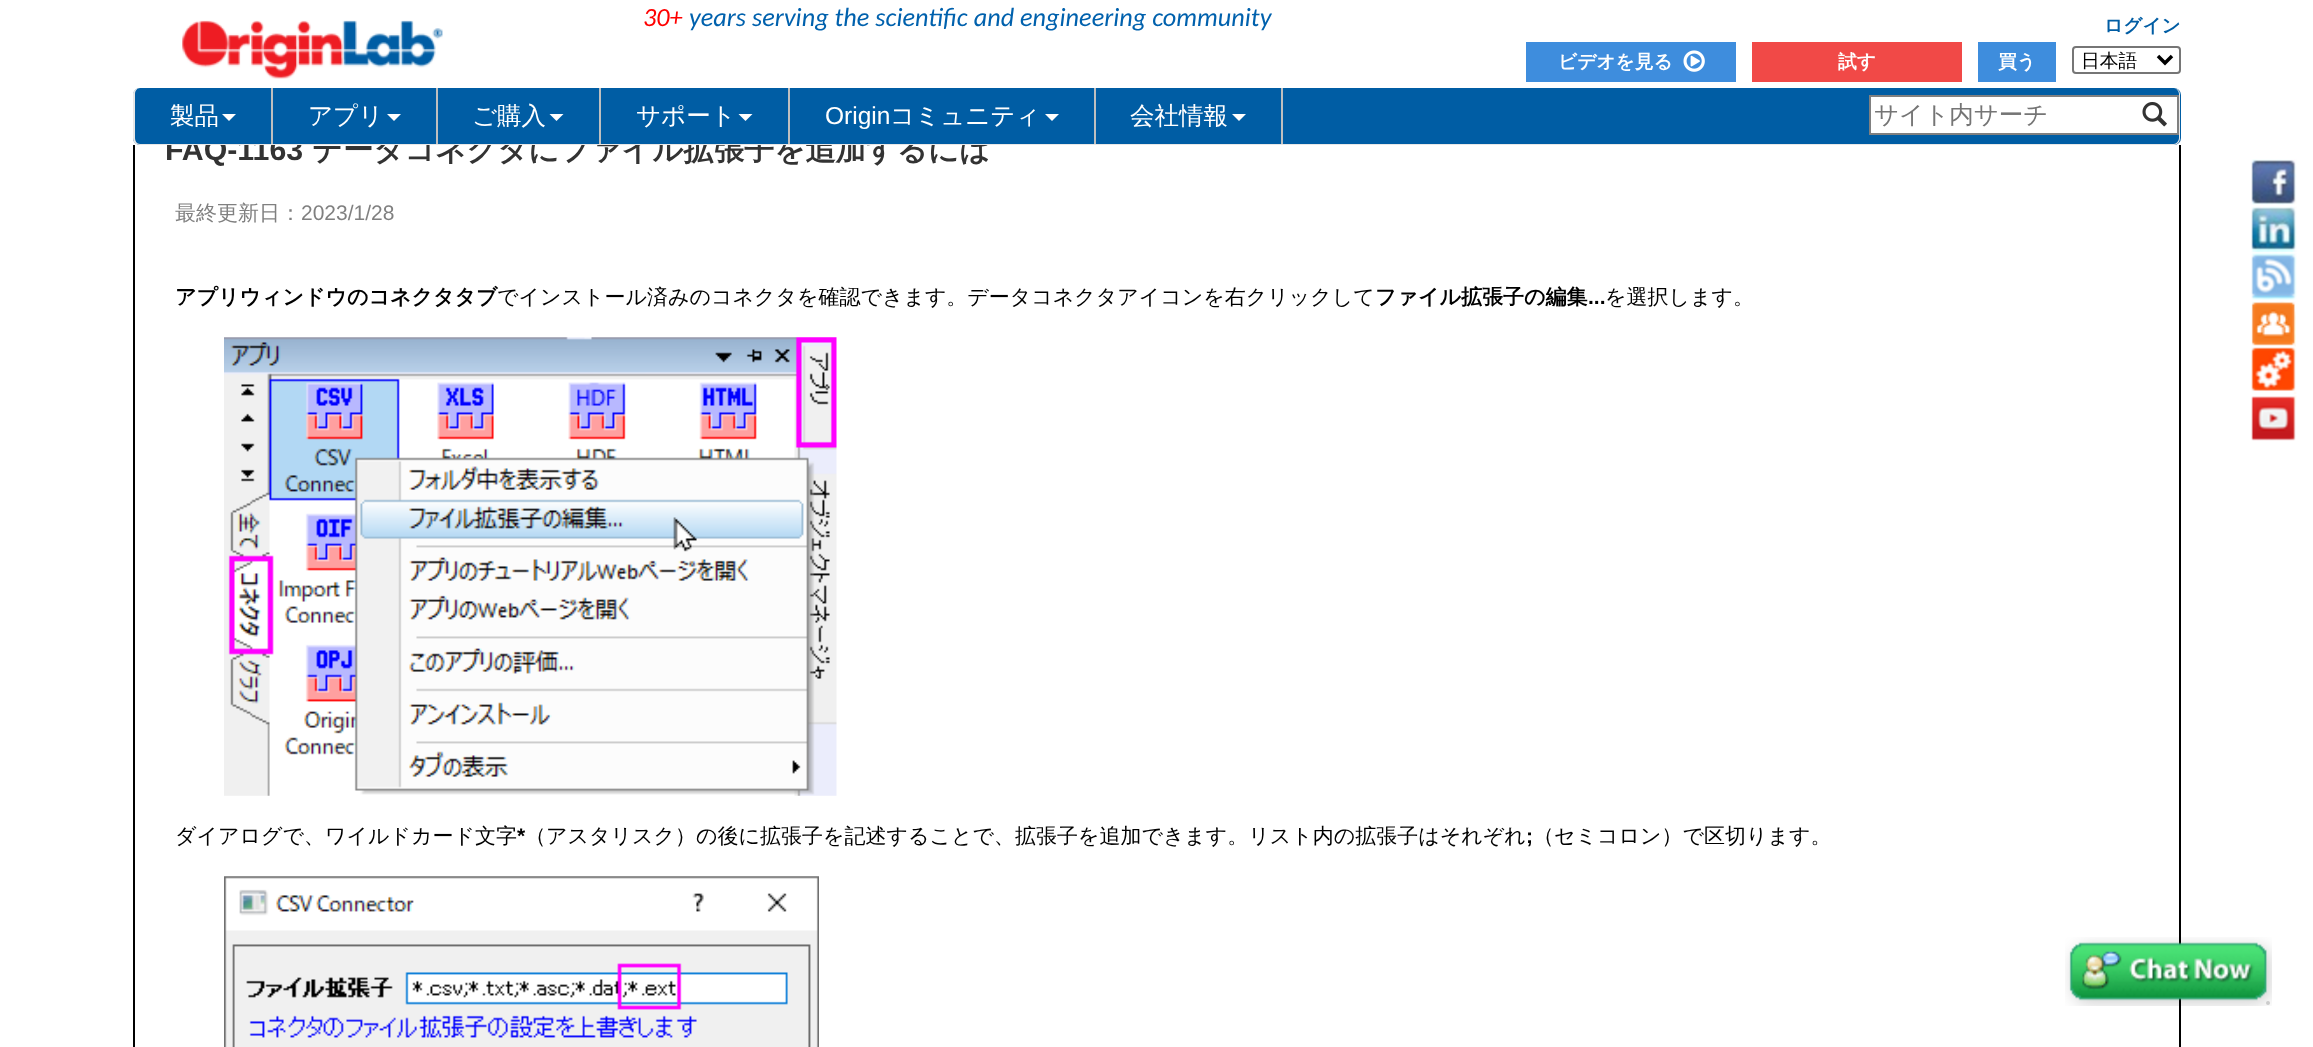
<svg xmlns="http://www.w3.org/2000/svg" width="2313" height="1047">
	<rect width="100%" height="100%" fill="#FFFFFF" />
	<rect x="134" y="-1" width="2046" height="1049" fill="none" stroke="#000000" stroke-width="2" />
	<text x="165" y="160" font-family="Liberation Sans" font-size="30.3" font-weight="700" fill="#333333">FAQ-1163</text>
	<text x="312" y="160" font-family="WenQuanYi Zen Hei" font-size="30.3" font-weight="700" fill="#333333">データコネクタにファイル拡張子を追加するには</text>
	<rect x="133" y="0" width="2048" height="145" fill="#FFFFFF" />
	<image x="182" y="20" width="261" height="59" href="assets/img1.png" />
	<text x="643" y="26" font-family="Carlito" font-size="26.25" font-style="italic" fill="#FF0000">30+</text>
	<text x="689" y="26" font-family="Carlito" font-size="26.25" font-style="italic" fill="#0061AD">years serving the scientific and engineering community</text>
	<text x="2104" y="32" font-family="WenQuanYi Zen Hei" font-size="18.75" font-weight="700" fill="#005DA4">ログイン</text>
	<rect x="1526" y="42" width="210" height="40" fill="#3E8DDD" />
	<text x="1558" y="68" font-family="WenQuanYi Zen Hei" font-size="18.75" font-weight="700" fill="#FFFFFF">ビデオを見る</text>
	<image x="1683" y="50" width="22" height="22" href="assets/img2.png" />
	<rect x="1752" y="42" width="210" height="40" fill="#F14947" />
	<text x="1838" y="68" font-family="WenQuanYi Zen Hei" font-size="18.75" font-weight="700" fill="#FFFFFF">試す</text>
	<rect x="1978" y="42" width="78" height="40" fill="#3E8DDD" />
	<text x="1998" y="68" font-family="WenQuanYi Zen Hei" font-size="18.75" font-weight="700" fill="#FFFFFF">買う</text>
	<rect x="2073" y="47" width="107" height="26" rx="3" fill="none" stroke="#767676" stroke-width="2" />
	<path d="M2158 56L2165 63L2172 56" fill="none" stroke="#000000" stroke-width="3.5" />
	<text x="2081" y="67" font-family="WenQuanYi Zen Hei" font-size="18.75" font-weight="500" fill="#000000">日本語</text>
	<rect x="133" y="88" width="2048" height="57" rx="7" fill="#005DA4" />
	<path d="M140 88H2174C2177 88 2180 91 2180 94V138C2180 142 2177 145 2174 145H140C136 145 133 142 133 138V94C133 91 136 88 140 88ZM140 88H2174C2176 88 2179 91 2179 94V138C2179 141 2176 144 2174 144H140C137 144 135 141 135 138V94C135 91 137 88 140 88Z" fill="#E7E7E7" fill-rule="evenodd" />
	<rect x="271" y="88" width="2" height="56" fill="#BFBFBF" />
	<text x="170" y="124" font-family="WenQuanYi Zen Hei" font-size="24.5" font-weight="500" fill="#FFFFFF">製品</text>
	<path d="M222 114H236L229 121Z" fill="#FFFFFF" />
	<rect x="436" y="88" width="2" height="56" fill="#BFBFBF" />
	<text x="308" y="124" font-family="WenQuanYi Zen Hei" font-size="24.5" font-weight="500" fill="#FFFFFF">アプリ</text>
	<path d="M387 114H401L394 121Z" fill="#FFFFFF" />
	<rect x="599" y="88" width="2" height="56" fill="#BFBFBF" />
	<text x="472" y="124" font-family="WenQuanYi Zen Hei" font-size="24.5" font-weight="500" fill="#FFFFFF">ご購入</text>
	<path d="M549.5 114H563.5L556.5 121Z" fill="#FFFFFF" />
	<rect x="788" y="88" width="2" height="56" fill="#BFBFBF" />
	<text x="636" y="124" font-family="WenQuanYi Zen Hei" font-size="24.5" font-weight="500" fill="#FFFFFF">サポート</text>
	<path d="M738.5 114H752.5L745.5 121Z" fill="#FFFFFF" />
	<rect x="1094" y="88" width="2" height="56" fill="#BFBFBF" />
	<text x="825" y="124" font-family="Liberation Sans" font-size="24.5" fill="#FFFFFF">Origin</text>
	<text x="890" y="124" font-family="WenQuanYi Zen Hei" font-size="24.5" font-weight="500" fill="#FFFFFF">コミュニティ</text>
	<path d="M1045 114H1059L1052 121Z" fill="#FFFFFF" />
	<rect x="1281" y="88" width="2" height="56" fill="#BFBFBF" />
	<text x="1130" y="124" font-family="WenQuanYi Zen Hei" font-size="24.5" font-weight="500" fill="#FFFFFF">会社情報</text>
	<path d="M1232 114H1246L1239 121Z" fill="#FFFFFF" />
	<rect x="1871" y="97" width="306" height="36" fill="#FFFFFF" />
	<rect x="1869" y="95" width="310" height="2" fill="#808080" />
	<rect x="1869" y="133" width="263" height="2" fill="#808080" />
	<rect x="1869" y="95" width="2" height="40" fill="#808080" />
	<text x="1874" y="123" font-family="WenQuanYi Zen Hei" font-size="24.5" font-weight="500" fill="#757575">サイト内サーチ</text>
	<rect x="2177" y="95" width="2" height="40" fill="#808080" />
	<rect x="2132" y="133" width="47" height="2" fill="#808080" />
	<image x="2142" y="102" width="25" height="25" href="assets/img3.png" />
	<image x="2251" y="159" width="46" height="46" href="assets/img4.png" />
	<image x="2251" y="206" width="46" height="47" href="assets/img5.png" />
	<image x="2251" y="253" width="46" height="47" href="assets/img6.png" />
	<image x="2251" y="301" width="45" height="46" href="assets/img7.png" />
	<image x="2251" y="347" width="46" height="47" href="assets/img8.png" />
	<image x="2251" y="395" width="46" height="46" href="assets/img9.png" />
	<text x="175" y="220" font-family="WenQuanYi Zen Hei" font-size="21" font-weight="500" fill="#808080">最終更新日：</text>
	<text x="301" y="220" font-family="Liberation Sans" font-size="21" fill="#808080">2023/1/28</text>
	<text x="175" y="304" font-family="WenQuanYi Zen Hei" font-size="21" font-weight="700" fill="#000000">アプリウィンドウのコネクタタブ</text>
	<text x="497" y="304" font-family="WenQuanYi Zen Hei" font-size="21" font-weight="500" fill="#000000">でインストール済みのコネクタを確認できます。データコネクタアイコンを右クリックして</text>
	<text x="1375" y="304" font-family="WenQuanYi Zen Hei" font-size="21" font-weight="700" fill="#000000">ファイル拡張子の編集</text>
	<text x="1588" y="304" font-family="Liberation Sans" font-size="21" font-weight="700" fill="#000000">...</text>
	<text x="1605" y="304" font-family="WenQuanYi Zen Hei" font-size="21" font-weight="500" fill="#000000">を選択します。</text>
	<image x="224" y="337" width="613" height="459" href="assets/img10.png" />
	<text x="175" y="843" font-family="WenQuanYi Zen Hei" font-size="21" font-weight="500" fill="#000000">ダイアログで、ワイルドカード文字</text>
	<text x="517" y="843" font-family="Liberation Sans" font-size="21" font-weight="700" fill="#000000">*</text>
	<text x="525" y="843" font-family="WenQuanYi Zen Hei" font-size="21" font-weight="500" fill="#000000">（アスタリスク）の後に拡張子を記述することで、拡張子を追加できます。リスト内の拡張子はそれぞれ</text>
	<text x="1526" y="843" font-family="Liberation Sans" font-size="21" font-weight="700" fill="#000000">;</text>
	<text x="1533" y="843" font-family="WenQuanYi Zen Hei" font-size="21" font-weight="500" fill="#000000">（セミコロン）で区切ります。</text>
	<image x="224" y="876" width="595" height="171" href="assets/img11.png" />
	<image x="2065" y="937" width="207" height="69" href="assets/img12.png" />
	<circle cx="2268" cy="1003" r="2" fill="#CCCCCC" />
</svg>
